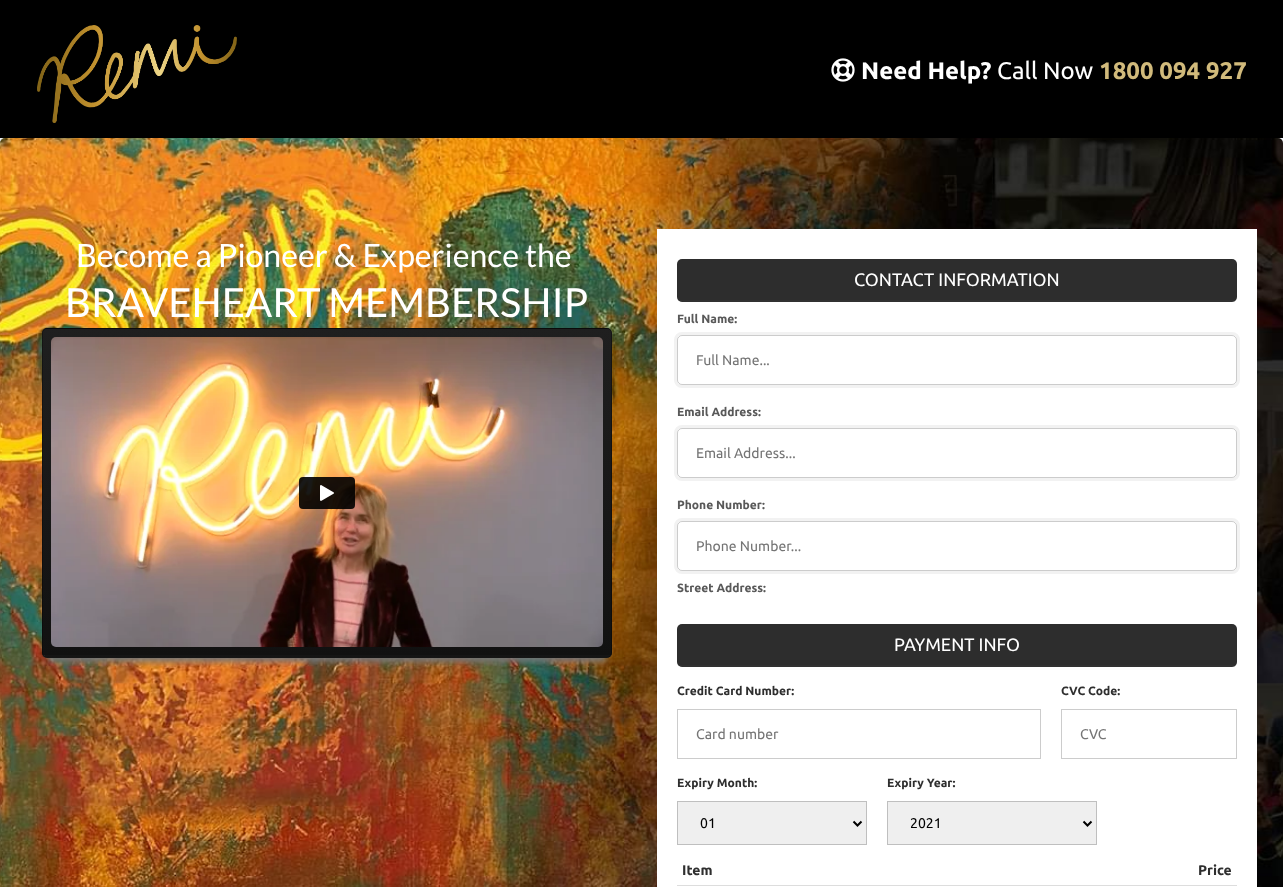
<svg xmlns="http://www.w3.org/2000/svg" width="1283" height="887">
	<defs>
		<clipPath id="clip1"><rect x="42" y="328" width="570" height="330" rx="5" /></clipPath>
		<linearGradient id="g1" gradientUnits="userSpaceOnUse" x1="327" y1="3" x2="327" y2="329"><stop offset="0" stop-color="#1F1F1F" /><stop offset="1" stop-color="#111111" /></linearGradient>
		<linearGradient id="g2" gradientUnits="userSpaceOnUse" x1="327" y1="329" x2="327" y2="655"><stop offset="0" stop-color="#1F1F1F" /><stop offset="1" stop-color="#111111" /></linearGradient>
		<linearGradient id="g3" gradientUnits="userSpaceOnUse" x1="327" y1="655" x2="327" y2="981"><stop offset="0" stop-color="#1F1F1F" /><stop offset="1" stop-color="#111111" /></linearGradient>
	</defs>
	<rect width="100%" height="100%" fill="#F1F4F8" />
	<rect x="0" y="0" width="1283" height="138" fill="#000000" />
	<image x="37" y="25" width="200" height="98" href="assets/img1.png" />
	<image x="831" y="58" width="24" height="24" href="assets/img2.png" />
	<text x="861" y="79" font-family="Ubuntu" font-size="24" font-weight="700" fill="#FFFFFF">Need Help?</text>
	<text x="997" y="79" font-family="Ubuntu" font-size="24" fill="#FFFFFF">Call Now</text>
	<text x="1099" y="79" font-family="Ubuntu" font-size="24" font-weight="700" fill="#D1BA7B">1800 094 927</text>
	<image x="0" y="138" width="1283" height="749" href="assets/img3.png" />
	<text x="76" y="267" font-family="Lato" font-size="32" fill="#FFFFFF">Become a Pioneer &amp; Experience the</text>
	<text x="65" y="317" font-family="Lato" font-size="40" fill="#FFFFFF">BRAVEHEART MEMBERSHIP</text>
	<rect x="48" y="344" width="558" height="318" fill="#777777" filter="blur(3px)" />
	<g clip-path="url(#clip1)">
		<rect x="42" y="328" width="570" height="1" fill="url(#g1)" />
		<rect x="42" y="329" width="570" height="326" fill="url(#g2)" />
		<rect x="42" y="655" width="570" height="3" fill="url(#g3)" />
	</g>
	<rect x="42.5" y="328.5" width="569" height="329" rx="4.5" fill="none" stroke="#000000" stroke-opacity="0.3" />
	<rect x="45" y="655" width="565" height="2" fill="#000000" fill-opacity="0.3" />
	<image x="51" y="337" width="552" height="310" href="assets/img4.png" />
	<rect x="657" y="229" width="600" height="658" fill="#FFFFFF" />
	<rect x="677" y="259" width="560" height="43" rx="5" fill="#2D2D2D" />
	<rect x="680" y="300" width="555" height="2" fill="#3F3F3F" fill-opacity="0.24" />
	<text x="854" y="286" font-family="Ubuntu" font-size="18" fill="#FFFFFF">CONTACT INFORMATION</text>
	<text x="677" y="323" font-family="Ubuntu" font-size="12" font-weight="700" fill="#595959">Full Name:</text>
	<rect x="675.5" y="333.5" width="563" height="53" rx="6.5" fill="none" stroke="#F2F2F2" stroke-width="3" />
	<rect x="677" y="335" width="560" height="50" rx="5" fill="#FFFFFF" />
	<rect x="677.5" y="335.5" width="559" height="49" rx="4.5" fill="none" stroke="#000000" stroke-opacity="0.2" />
	<text x="696" y="365" font-family="Ubuntu" font-size="14" fill="#757575">Full Name...</text>
	<text x="677" y="416" font-family="Ubuntu" font-size="12" font-weight="700" fill="#595959">Email Address:</text>
	<rect x="675.5" y="426.5" width="563" height="53" rx="6.5" fill="none" stroke="#F2F2F2" stroke-width="3" />
	<rect x="677" y="428" width="560" height="50" rx="5" fill="#FFFFFF" />
	<rect x="677.5" y="428.5" width="559" height="49" rx="4.5" fill="none" stroke="#000000" stroke-opacity="0.2" />
	<text x="696" y="458" font-family="Ubuntu" font-size="14" fill="#757575">Email Address...</text>
	<text x="677" y="509" font-family="Ubuntu" font-size="12" font-weight="700" fill="#595959">Phone Number:</text>
	<rect x="675.5" y="519.5" width="563" height="53" rx="6.5" fill="none" stroke="#F2F2F2" stroke-width="3" />
	<rect x="677" y="521" width="560" height="50" rx="5" fill="#FFFFFF" />
	<rect x="677.5" y="521.5" width="559" height="49" rx="4.5" fill="none" stroke="#000000" stroke-opacity="0.2" />
	<text x="696" y="551" font-family="Ubuntu" font-size="14" fill="#757575">Phone Number...</text>
	<text x="677" y="592" font-family="Ubuntu" font-size="12" font-weight="700" fill="#595959">Street Address:</text>
	<rect x="677" y="624" width="560" height="43" rx="5" fill="#2D2D2D" />
	<rect x="680" y="665" width="555" height="2" fill="#3F3F3F" fill-opacity="0.24" />
	<text x="894" y="651" font-family="Ubuntu" font-size="18" fill="#FFFFFF">PAYMENT INFO</text>
	<text x="677" y="695" font-family="Ubuntu" font-size="12" font-weight="700" fill="#2F2F2F">Credit Card Number:</text>
	<rect x="677.5" y="709.5" width="363" height="49" fill="none" stroke="#CCCCCC" />
	<text x="696" y="739" font-family="Ubuntu" font-size="14" fill="#757575">Card number</text>
	<text x="1061" y="695" font-family="Ubuntu" font-size="12" font-weight="700" fill="#2F2F2F">CVC Code:</text>
	<rect x="1061.5" y="709.5" width="175" height="49" fill="none" stroke="#CCCCCC" />
	<text x="1080" y="739" font-family="Ubuntu" font-size="14" fill="#757575">CVC</text>
	<text x="677" y="787" font-family="Ubuntu" font-size="12" font-weight="700" fill="#2F2F2F">Expiry Month:</text>
	<rect x="677.5" y="801.5" width="189" height="43" fill="#EFEFEF" stroke="#BFBFBF" />
	<path d="M853.5 821.5L857.5 825.5L861.5 821.5" fill="none" stroke="#000000" stroke-width="2" />
	<text x="700" y="828" font-family="Ubuntu" font-size="14" fill="#000000">01</text>
	<text x="887" y="787" font-family="Ubuntu" font-size="12" font-weight="700" fill="#2F2F2F">Expiry Year:</text>
	<rect x="887.5" y="801.5" width="209" height="43" fill="#EFEFEF" stroke="#BFBFBF" />
	<path d="M1083.5 821.5L1087.5 825.5L1091.5 821.5" fill="none" stroke="#000000" stroke-width="2" />
	<text x="910" y="828" font-family="Ubuntu" font-size="14" fill="#000000">2021</text>
	<rect x="677" y="885" width="560" height="1" fill="#DDDDDD" />
	<g font-family="Ubuntu" font-size="14" font-weight="700" fill="#2F2F2F">
		<text x="682" y="875">Item</text>
		<text x="1198" y="875">Price</text>
	</g>
</svg>
